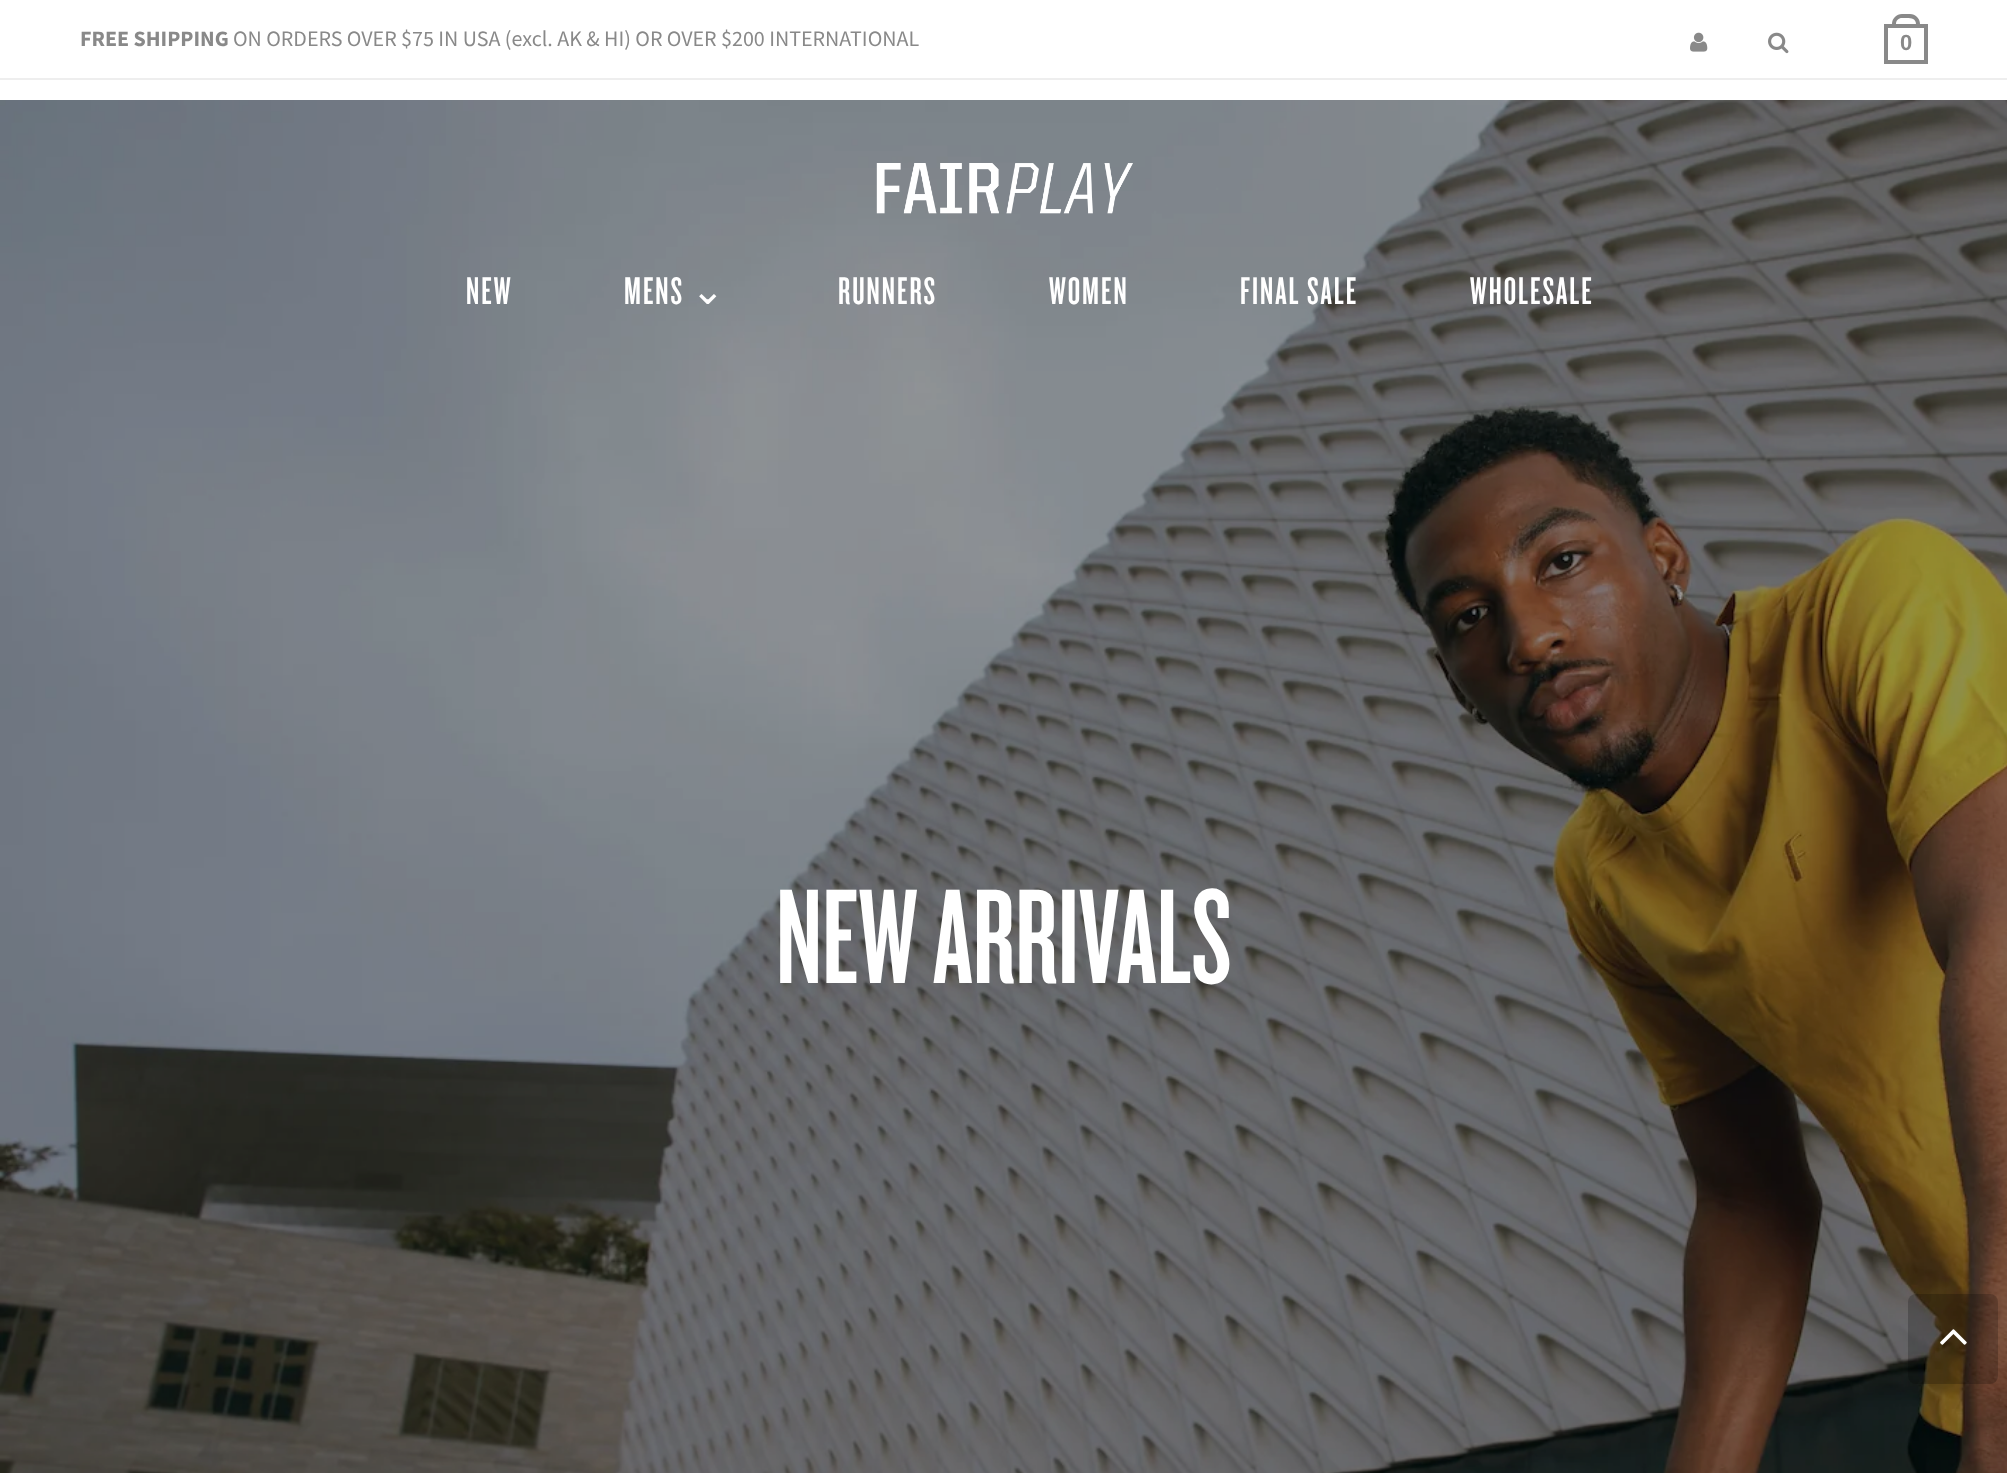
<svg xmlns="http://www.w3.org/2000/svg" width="2007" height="1473">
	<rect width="100%" height="100%" fill="#FFFFFF" />
	<rect x="0" y="78" width="2007" height="2" fill="#EEEEEE" />
	<text x="80" y="46" font-family="Source Sans Pro" font-size="22" font-weight="700" fill="#898989">FREE SHIPPING</text>
	<text x="233" y="46" font-family="Source Sans Pro" font-size="22" fill="#898989">ON ORDERS OVER $75 IN USA (excl. AK &amp; HI) OR OVER $200 INTERNATIONAL</text>
	<image x="1690" y="32" width="18" height="20" href="assets/img1.png" />
	<image x="1768" y="32" width="21" height="22" href="assets/img2.png" />
	<path d="M1902 14H1910C1915.5 14 1920 18.5 1920 24H1892C1892 18.5 1896.5 14 1902 14ZM1902 18C1907 18 1916 16.5 1916 24H1896C1896 20.5 1898.5 18 1902 18Z" fill="#898989" fill-rule="evenodd" />
	<rect x="1886" y="26" width="40" height="36" fill="none" stroke="#898989" stroke-width="4" />
	<text x="1900" y="50" font-family="Liberation Sans" font-size="22" font-weight="700" fill="#898989">0</text>
	<image x="0" y="100" width="2007" height="1373" href="assets/img4.png" />
	<image x="876" y="163" width="257" height="51" href="assets/img3.png" />
	<g font-family="'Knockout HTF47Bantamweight'" font-size="40" font-weight="500" letter-spacing="2" fill="#FFFFFF">
		<text x="466" y="304">NEW</text>
		<text x="624" y="304">MENS</text>
	</g>
	<text x="691" y="304" font-family="DejaVu Sans" font-size="40" letter-spacing="2" fill="#FFFFFF">⌄</text>
	<g font-family="'Knockout HTF47Bantamweight'" font-size="40" font-weight="500" letter-spacing="2" fill="#FFFFFF">
		<text x="838" y="304">RUNNERS</text>
		<text x="1049" y="304">WOMEN</text>
		<text x="1240" y="304">FINAL SALE</text>
		<text x="1470" y="304">WHOLESALE</text>
	</g>
	<text x="776" y="983" font-family="'Knockout HTF47Bantamweight'" font-size="140" font-weight="500" fill="#FFFFFF">NEW ARRIVALS</text>
	<rect x="1908" y="1294" width="90" height="90" rx="8" fill="#000000" fill-opacity="0.2" />
	<image x="1940" y="1329" width="27" height="16" href="assets/img5.png" />
</svg>
